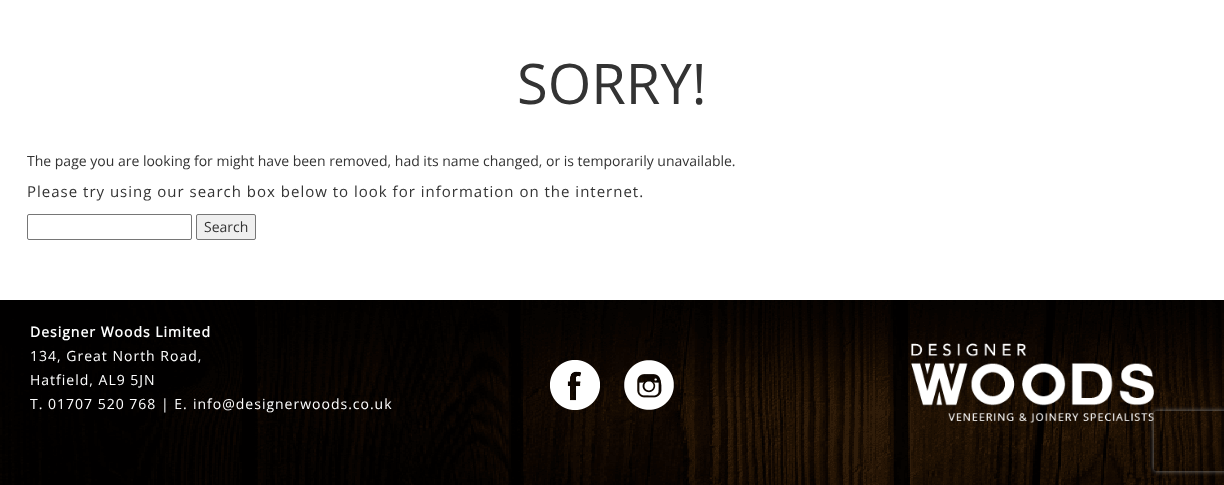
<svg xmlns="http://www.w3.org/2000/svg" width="1224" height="485">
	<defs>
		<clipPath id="clip1"><path d="M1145 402H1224V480H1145ZM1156 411H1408C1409 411 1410 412 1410 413V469C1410 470 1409 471 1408 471H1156C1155 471 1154 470 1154 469V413C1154 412 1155 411 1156 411Z" clip-rule="evenodd" /></clipPath>
	</defs>
	<rect width="100%" height="100%" fill="#FFFFFF" />
	<text x="517" y="104" font-family="Open Sans" font-size="56" fill="#333333">SORRY!</text>
	<text x="27" y="166" font-family="Open Sans" font-size="14" fill="#333333">The page you are looking for might have been removed, had its name changed, or is temporarily unavailable.</text>
	<text x="27" y="197" font-family="Open Sans" font-size="15" letter-spacing="1" fill="#333333">Please try using our search box below to look for information on the internet.</text>
	<rect x="27.5" y="214.5" width="164" height="25" rx="1.5" fill="none" stroke="#767676" />
	<rect x="196.5" y="214.5" width="59" height="25" rx="1.5" fill="#EFEFEF" stroke="#767676" />
	<text x="204" y="232" font-family="Open Sans" font-size="14" fill="#333333">Search</text>
	<image x="0" y="300" width="1224" height="185" href="assets/img1.png" />
	<text x="30" y="337" font-family="Open Sans" font-size="14" font-weight="700" letter-spacing="1" fill="#FFFFFF">Designer Woods Limited</text>
	<g font-family="Open Sans" font-size="14" letter-spacing="1" fill="#FFFFFF">
		<text x="30" y="361">134, Great North Road,</text>
		<text x="30" y="385">Hatfield, AL9 5JN</text>
		<text x="30" y="409">T.</text>
		<text x="48" y="409">01707 520 768 | E.</text>
		<text x="193" y="409">info@designerwoods.co.uk</text>
	</g>
	<image x="550" y="360" width="50" height="50" href="assets/img2.png" />
	<image x="624" y="360" width="50" height="50" href="assets/img3.png" />
	<image x="911" y="343" width="243" height="80" href="assets/img4.png" />
	<g clip-path="url(#clip1)">
		<rect x="1154" y="411" width="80" height="60" rx="2" fill="#808080" filter="blur(2.5px)" />
	</g>
</svg>
